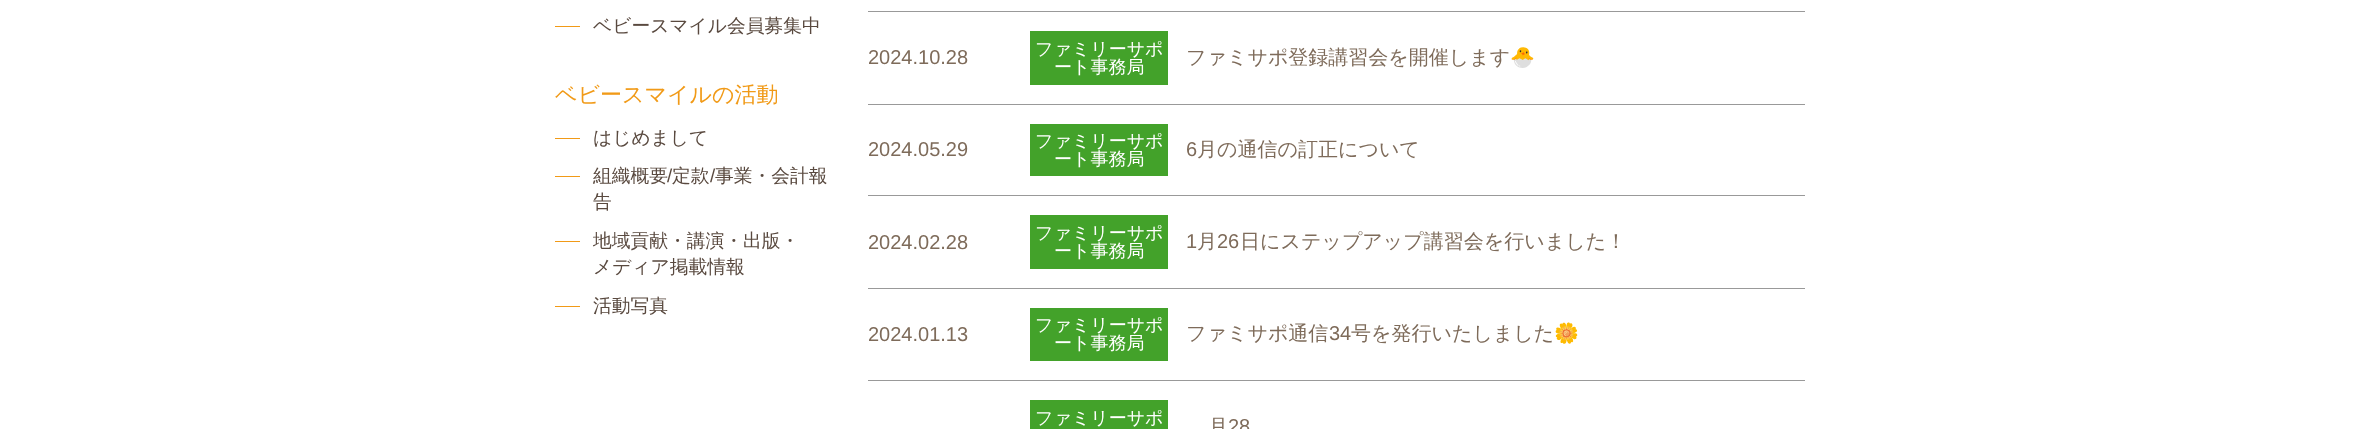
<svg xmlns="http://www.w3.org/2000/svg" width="2359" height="429">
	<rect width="100%" height="100%" fill="#FFFFFF" />
	<rect x="555" y="26" width="25" height="1" fill="#F19A17" />
	<text x="593" y="32" font-family="WenQuanYi Zen Hei" font-size="18.75" font-weight="500" fill="#59493F">ベビースマイル会員募集中</text>
	<text x="555" y="102" font-family="WenQuanYi Zen Hei" font-size="22" font-weight="500" fill="#F19A17">ベビースマイルの活動</text>
	<rect x="555" y="138" width="25" height="1" fill="#F19A17" />
	<text x="593" y="144" font-family="WenQuanYi Zen Hei" font-size="18.75" font-weight="500" fill="#59493F">はじめまして</text>
	<rect x="555" y="176" width="25" height="1" fill="#F19A17" />
	<text x="593" y="182" font-family="WenQuanYi Zen Hei" font-size="18.75" font-weight="500" fill="#59493F">組織概要</text>
	<text x="667" y="182" font-family="Liberation Sans" font-size="18.75" fill="#59493F">/</text>
	<text x="672" y="182" font-family="WenQuanYi Zen Hei" font-size="18.75" font-weight="500" fill="#59493F">定款</text>
	<text x="710" y="182" font-family="Liberation Sans" font-size="18.75" fill="#59493F">/</text>
	<g font-family="WenQuanYi Zen Hei" font-size="18.75" font-weight="500" fill="#59493F">
		<text x="715" y="182">事業・会計報</text>
		<text x="593" y="208">告</text>
	</g>
	<rect x="555" y="241" width="25" height="1" fill="#F19A17" />
	<g font-family="WenQuanYi Zen Hei" font-size="18.75" font-weight="500" fill="#59493F">
		<text x="593" y="247">地域貢献・講演・出版・</text>
		<text x="593" y="273">メディア掲載情報</text>
	</g>
	<rect x="555" y="306" width="25" height="1" fill="#F19A17" />
	<text x="593" y="312" font-family="WenQuanYi Zen Hei" font-size="18.75" font-weight="500" fill="#59493F">活動写真</text>
	<rect x="868" y="11" width="937" height="1" fill="#999999" />
	<rect x="868" y="104" width="937" height="1" fill="#999999" />
	<text x="868" y="64" font-family="Liberation Sans" font-size="20" fill="#7E6B5A">2024.10.28</text>
	<rect x="1030" y="31" width="138" height="54" fill="#43A22A" />
	<g font-family="WenQuanYi Zen Hei" font-size="18" font-weight="500" fill="#FFFFFF">
		<text x="1035" y="55">ファミリーサポ</text>
		<text x="1054" y="73">ート事務局</text>
	</g>
	<text x="1186" y="64" font-family="WenQuanYi Zen Hei" font-size="20" font-weight="500" fill="#7E6B5A">ファミサポ登録講習会を開催します</text>
	<text x="1510" y="64" font-family="Noto Color Emoji" font-size="20" fill="#7E6B5A">🐣</text>
	<rect x="868" y="195" width="937" height="1" fill="#999999" />
	<text x="868" y="156" font-family="Liberation Sans" font-size="20" fill="#7E6B5A">2024.05.29</text>
	<rect x="1030" y="124" width="138" height="52" fill="#43A22A" />
	<g font-family="WenQuanYi Zen Hei" font-size="18" font-weight="500" fill="#FFFFFF">
		<text x="1035" y="147">ファミリーサポ</text>
		<text x="1054" y="165">ート事務局</text>
	</g>
	<text x="1186" y="156" font-family="Liberation Sans" font-size="20" fill="#7E6B5A">6</text>
	<text x="1197" y="156" font-family="WenQuanYi Zen Hei" font-size="20" font-weight="500" fill="#7E6B5A">月の通信の訂正について</text>
	<rect x="868" y="288" width="937" height="1" fill="#999999" />
	<text x="868" y="249" font-family="Liberation Sans" font-size="20" fill="#7E6B5A">2024.02.28</text>
	<rect x="1030" y="215" width="138" height="54" fill="#43A22A" />
	<g font-family="WenQuanYi Zen Hei" font-size="18" font-weight="500" fill="#FFFFFF">
		<text x="1035" y="239">ファミリーサポ</text>
		<text x="1054" y="257">ート事務局</text>
	</g>
	<text x="1186" y="248" font-family="Liberation Sans" font-size="20" fill="#7E6B5A">1</text>
	<text x="1197" y="248" font-family="WenQuanYi Zen Hei" font-size="20" font-weight="500" fill="#7E6B5A">月</text>
	<text x="1217" y="248" font-family="Liberation Sans" font-size="20" fill="#7E6B5A">26</text>
	<text x="1240" y="248" font-family="WenQuanYi Zen Hei" font-size="20" font-weight="500" fill="#7E6B5A">日にステップアップ講習会を行いました！</text>
	<rect x="868" y="380" width="937" height="1" fill="#999999" />
	<text x="868" y="341" font-family="Liberation Sans" font-size="20" fill="#7E6B5A">2024.01.13</text>
	<rect x="1030" y="308" width="138" height="53" fill="#43A22A" />
	<g font-family="WenQuanYi Zen Hei" font-size="18" font-weight="500" fill="#FFFFFF">
		<text x="1035" y="331">ファミリーサポ</text>
		<text x="1054" y="349">ート事務局</text>
	</g>
	<text x="1186" y="340" font-family="WenQuanYi Zen Hei" font-size="20" font-weight="500" fill="#7E6B5A">ファミサポ通信</text>
	<text x="1329" y="340" font-family="Liberation Sans" font-size="20" fill="#7E6B5A">34</text>
	<text x="1351" y="340" font-family="WenQuanYi Zen Hei" font-size="20" font-weight="500" fill="#7E6B5A">号を発行いたしました</text>
	<text x="1554" y="340" font-family="Noto Color Emoji" font-size="20" fill="#7E6B5A">🌼</text>
	<rect x="1030" y="400" width="138" height="29" fill="#43A22A" />
	<text x="1035" y="424" font-family="WenQuanYi Zen Hei" font-size="18" font-weight="500" fill="#FFFFFF">ファミリーサポ</text>
	<text x="1208" y="433" font-family="WenQuanYi Zen Hei" font-size="20" font-weight="500" fill="#7E6B5A">月</text>
	<text x="1228" y="433" font-family="Liberation Sans" font-size="20" fill="#7E6B5A">28</text>
</svg>
